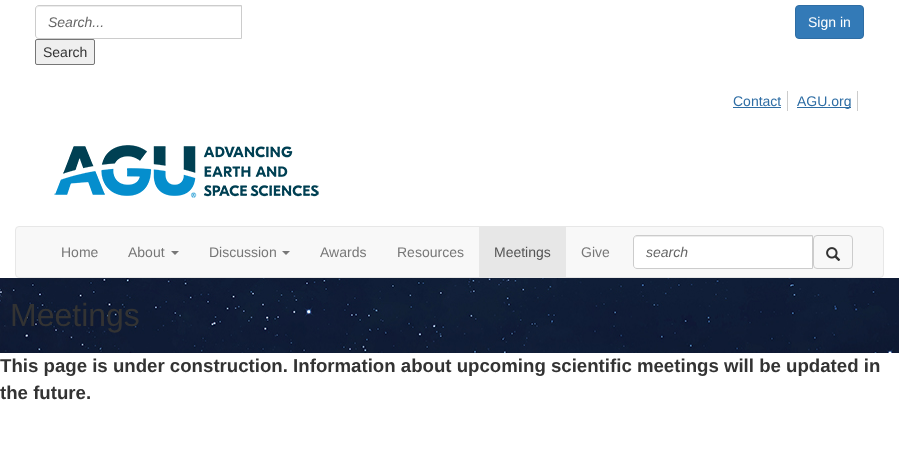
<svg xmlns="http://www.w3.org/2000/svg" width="899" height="452">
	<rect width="100%" height="100%" fill="#FFFFFF" />
	<path d="M39 7H241V6H38C36 7 36 8 36 10C36 8 37 7 39 7Z" fill="#ECECEC" />
	<path d="M39 5.5H241.5V38.5H39C37 38.5 35.5 37 35.5 35V9C35.5 7 37 5.5 39 5.5Z" fill="none" stroke="#CCCCCC" />
	<text x="48" y="27" font-family="Liberation Sans" font-size="14" font-style="italic" fill="#666666">Search...</text>
	<rect x="35.5" y="39.5" width="59" height="25" rx="1.5" fill="#EFEFEF" stroke="#767676" />
	<text x="43" y="57" font-family="Liberation Sans" font-size="14" fill="#333333">Search</text>
	<rect x="795.5" y="5.5" width="68" height="33" rx="3.5" fill="#337AB7" stroke="#2E6DA4" />
	<text x="808" y="27" font-family="Liberation Sans" font-size="14" fill="#FFFFFF">Sign in</text>
	<rect x="787" y="91" width="1" height="20" fill="#CCCCCC" />
	<text x="733" y="106" font-family="Liberation Sans" font-size="14" fill="#2E6DA4">Contact</text>
	<rect x="733" y="107" width="48" height="1" fill="#2E6DA4" />
	<rect x="857" y="91" width="1" height="20" fill="#CCCCCC" />
	<rect x="797" y="107" width="54" height="1" fill="#2E6DA4" />
	<text x="797" y="106" font-family="Liberation Sans" font-size="14" fill="#2E6DA4">AGU.org</text>
	<image x="54" y="145" width="265" height="53" href="assets/img1.png" />
	<rect x="15.5" y="226.5" width="868" height="51" rx="3.5" fill="#F8F8F8" stroke="#E7E7E7" />
	<g font-family="Liberation Sans" font-size="14" fill="#777777">
		<text x="61" y="257">Home</text>
		<text x="128" y="257">About</text>
	</g>
	<path d="M171 251H179L175 255Z" fill="#777777" />
	<text x="209" y="257" font-family="Liberation Sans" font-size="14" fill="#777777">Discussion</text>
	<path d="M282 251H290L286 255Z" fill="#777777" />
	<g font-family="Liberation Sans" font-size="14" fill="#777777">
		<text x="320" y="257">Awards</text>
		<text x="397" y="257">Resources</text>
	</g>
	<rect x="479" y="227" width="87" height="50" fill="#E7E7E7" />
	<text x="494" y="257" font-family="Liberation Sans" font-size="14" fill="#555555">Meetings</text>
	<text x="581" y="257" font-family="Liberation Sans" font-size="14" fill="#777777">Give</text>
	<path d="M637 235H813V269H637C635 269 633 267 633 265V239C633 237 635 235 637 235Z" fill="#FFFFFF" />
	<path d="M637 237H812V236H636C634 237 634 238 634 240C634 238 635 237 637 237Z" fill="#ECECEC" />
	<path d="M637 235.5H812.5V268.5H637C635 268.5 633.5 267 633.5 265V239C633.5 237 635 235.5 637 235.5Z" fill="none" stroke="#CCCCCC" />
	<text x="646" y="257" font-family="Liberation Sans" font-size="14" font-style="italic" fill="#666666">search</text>
	<rect x="813.5" y="235.5" width="39" height="33" rx="3.5" fill="none" stroke="#CCCCCC" />
	<image x="826" y="247" width="15" height="14" href="assets/img2.png" />
	<image x="0" y="278" width="899" height="75" href="assets/img3.png" />
	<text x="10" y="326" font-family="Liberation Sans" font-size="32" fill="#333333">Meetings</text>
	<g font-family="Liberation Sans" font-size="18.65" font-weight="700" fill="#333333">
		<text x="0" y="372">This page is under construction. Information about upcoming scientific meetings will be updated in</text>
		<text x="0" y="399">the future.</text>
	</g>
</svg>
